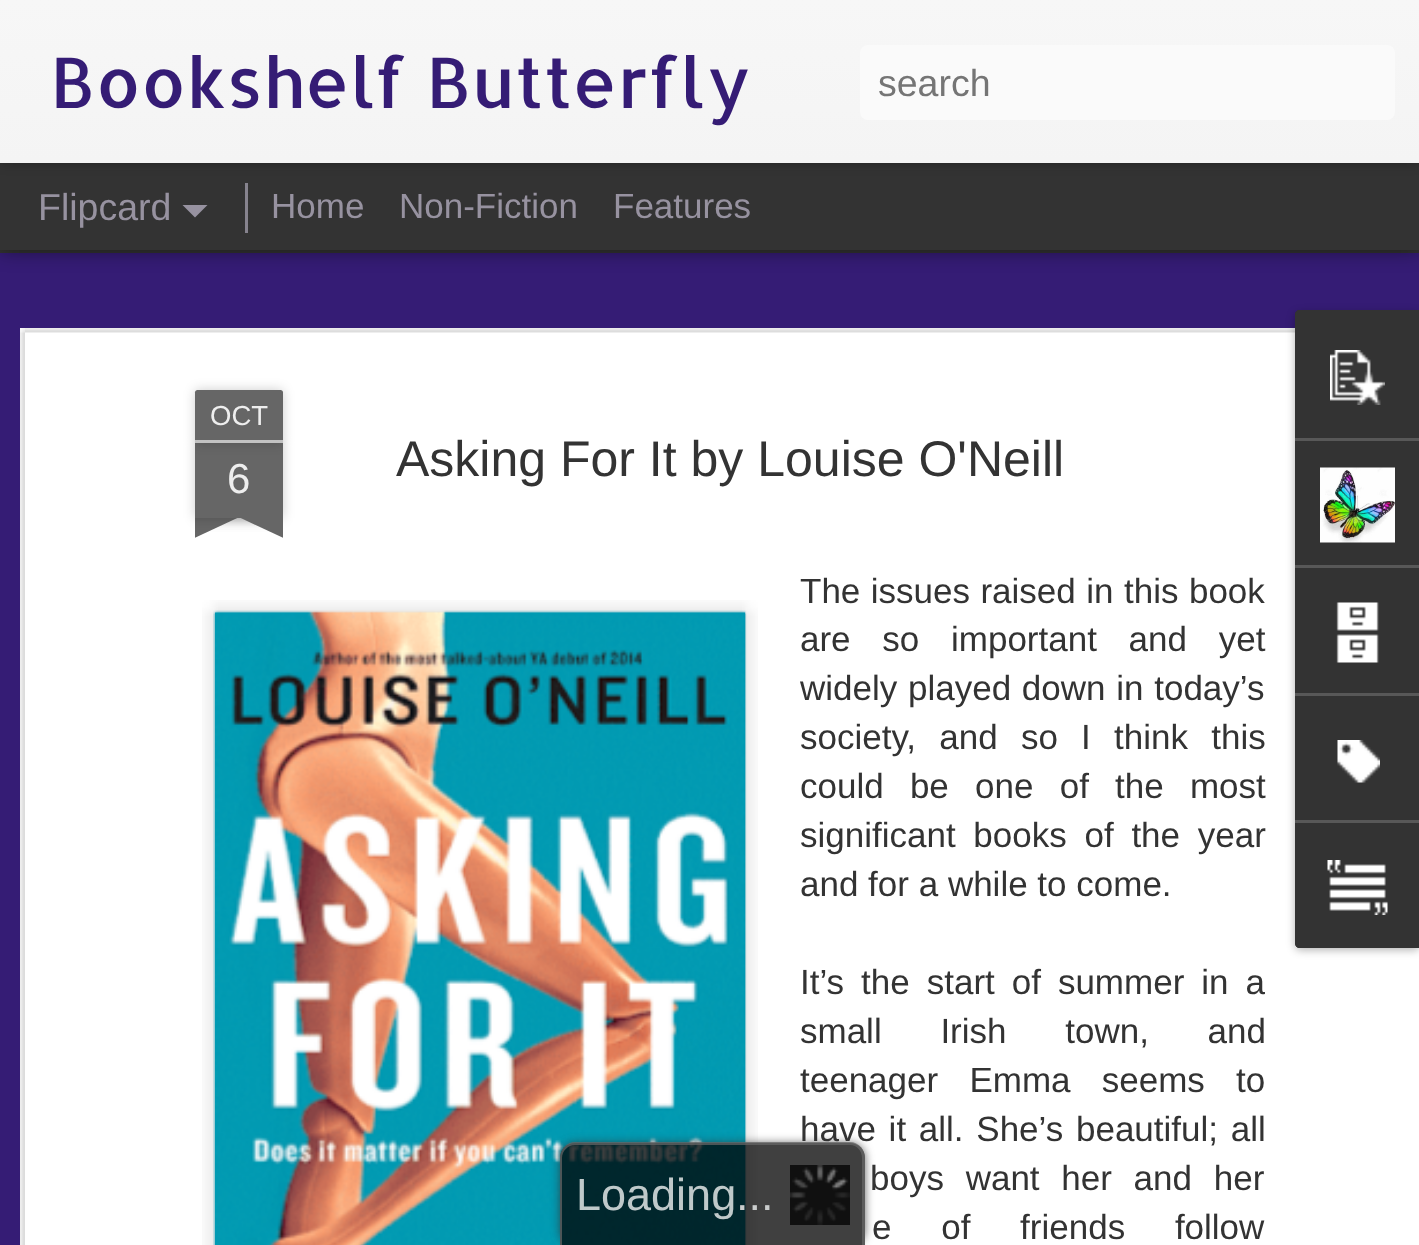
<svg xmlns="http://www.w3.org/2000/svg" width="1419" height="1245">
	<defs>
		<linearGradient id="g1" gradientUnits="userSpaceOnUse" x1="0" y1="0" x2="0" y2="163"><stop offset="0" stop-color="#F7F7F7" /><stop offset="1" stop-color="#F4F4F4" /></linearGradient>
		<clipPath id="clip1"><rect x="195" y="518" width="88" height="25" /></clipPath>
		<clipPath id="clip2"><rect x="195" y="518" width="88" height="25" /></clipPath>
		<clipPath id="clip3"><path d="M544 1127H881V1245H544ZM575 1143H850C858.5 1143 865 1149.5 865 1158V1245H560V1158C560 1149.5 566.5 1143 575 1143Z" clip-rule="evenodd" /></clipPath>
	</defs>
	<rect width="100%" height="100%" fill="#333333" />
	<rect x="0" y="253" width="1419" height="992" fill="#351C75" />
	<rect x="0" y="163" width="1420" height="87" fill="#000000" fill-opacity="0.5" filter="blur(10px)" />
	<rect x="0" y="163" width="1419" height="87" fill="#333333" />
	<rect x="0" y="0" width="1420" height="163" fill="#000000" fill-opacity="0.3" filter="blur(6px)" />
	<rect x="0" y="0" width="1419" height="163" fill="url(#g1)" />
	<text x="50" y="108" font-family="Allerta" font-size="70" fill="#351C75">Bookshelf Butterfly</text>
	<rect x="860" y="45" width="535" height="75" rx="8" fill="#FAFAFA" />
	<text x="878" y="96" font-family="Liberation Sans" font-size="37.5" fill="#757575">search</text>
	<text x="38" y="220" font-family="Liberation Sans" font-size="37.5" fill="#9792A0">Flipcard</text>
	<path d="M182.5 205H207.5L195 217.5Z" fill="#9792A0" />
	<rect x="245" y="183" width="3" height="50" fill="#86838E" />
	<g font-family="Liberation Sans" font-size="35" fill="#9792A0">
		<text x="271" y="218">Home</text>
		<text x="399" y="218">Non-Fiction</text>
		<text x="613" y="218">Features</text>
	</g>
	<rect x="20" y="328" width="1399" height="917" fill="#FFFFFF" />
	<image x="20" y="328" width="1275" height="917" href="assets/img1.png" />
	<rect x="195" y="443" width="88" height="75" fill="#000000" fill-opacity="0.2" filter="blur(6px)" />
	<rect x="195" y="443" width="88" height="75" fill="#666666" />
	<rect x="195" y="390" width="88" height="53" rx="2.5" fill="#000000" fill-opacity="0.2" filter="blur(6px)" />
	<path d="M197.5 390H280.5C282 390 283 391 283 392.5V443H195V392.5C195 391 196 390 197.5 390Z" fill="#666666" />
	<rect x="195" y="440" width="88" height="3" fill="#C2C2C2" />
	<text x="210" y="425" font-family="Liberation Sans" font-size="27.5" fill="#EEEEEE">OCT</text>
	<text x="227" y="493" font-family="Liberation Sans" font-size="42" fill="#EEEEEE">6</text>
	<g clip-path="url(#clip1)">
		<rect x="173" y="493" width="125" height="25" fill="#000000" fill-opacity="0.2" filter="blur(6.5px)" />
	</g>
	<g clip-path="url(#clip2)">
		<path d="M173 520L286 467L297 490L184 543Z" fill="#666666" />
	</g>
	<g clip-path="url(#clip1)">
		<rect x="180" y="493" width="125" height="25" fill="#000000" fill-opacity="0.2" filter="blur(6.5px)" />
	</g>
	<g clip-path="url(#clip2)">
		<path d="M191 467L304 520L294 543L181 490Z" fill="#666666" />
	</g>
	<text x="396" y="476" font-family="Liberation Sans" font-size="50" fill="#333333">Asking For It by Louise O'Neill</text>
	<image x="202" y="600" width="556" height="645" href="assets/img2.png" />
	<image x="213" y="610" width="534" height="635" href="assets/img3.png" />
	<g font-family="Liberation Sans" font-size="35" fill="#333333">
		<text x="800" y="603" word-spacing="0.75">The issues raised in this book</text>
		<text x="800" y="651" word-spacing="22">are so important and yet</text>
		<text x="800" y="700" word-spacing="1">widely played down in today’s</text>
		<text x="800" y="749" word-spacing="13.5">society, and so I think this</text>
		<text x="800" y="798" word-spacing="16.5">could be one of the most</text>
		<text x="800" y="847" word-spacing="8">significant books of the year</text>
		<text x="800" y="896">and for a while to come.</text>
		<text x="800" y="994" word-spacing="7.25">It’s the start of summer in a</text>
		<text x="800" y="1043" word-spacing="49">small Irish town, and</text>
		<text x="800" y="1092" word-spacing="21.5">teenager Emma seems to</text>
		<text x="800" y="1141" word-spacing="3">have it all. She’s beautiful; all</text>
		<text x="870" y="1190" word-spacing="12">boys want her and her</text>
		<text x="872" y="1239" word-spacing="40">e of friends follow</text>
	</g>
	<rect x="1295" y="313" width="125" height="637" rx="5" fill="#000000" fill-opacity="0.3" filter="blur(4px)" />
	<path d="M1300 310H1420V948H1300C1297 948 1295 946 1295 943V315C1295 312 1297 310 1300 310Z" fill="#333333" />
	<path d="M1300 310H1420V438H1295V315C1295 312 1297 310 1300 310Z" fill="#333333" />
	<image x="1330" y="350" width="55" height="55" href="assets/img4.png" />
	<rect x="1295" y="438" width="124" height="3" fill="#585858" />
	<image x="1320" y="467" width="75" height="76" href="assets/img5.png" />
	<rect x="1295" y="565" width="124" height="3" fill="#585858" />
	<image x="1336" y="602" width="43" height="61" href="assets/img6.png" />
	<rect x="1295" y="693" width="124" height="3" fill="#585858" />
	<image x="1337" y="740" width="43" height="43" href="assets/img7.png" />
	<path d="M1295 820H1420V948H1300C1297 948 1295 946 1295 943Z" fill="#333333" />
	<rect x="1295" y="820" width="124" height="3" fill="#585858" />
	<image x="1327" y="860" width="61" height="55" href="assets/img8.png" />
	<g clip-path="url(#clip3)">
		<rect x="560" y="1143" width="305" height="102" rx="15" fill="#333333" fill-opacity="0.75" filter="blur(5px)" />
	</g>
	<path d="M575 1143H850C858.5 1143 865 1149.5 865 1158V1245H560V1158C560 1149.5 566.5 1143 575 1143Z" fill="#000000" fill-opacity="0.75" />
	<path d="M575 1142H850C858 1142 865 1149 865 1158V1245H560V1158C560 1149 567 1142 575 1142ZM575 1145H850C857 1145 862 1151 862 1158V1245H562V1158C562 1151 568 1145 575 1145Z" fill="#666666" fill-opacity="0.75" fill-rule="evenodd" />
	<image x="790" y="1165" width="60" height="60" href="assets/img9.png" />
	<text x="576" y="1210" font-family="Liberation Sans" font-size="45" fill="#BFC9CA">Loading</text>
	<text x="736" y="1210" font-family="Liberation Sans" font-size="45" fill="#CACDCD">...</text>
</svg>
